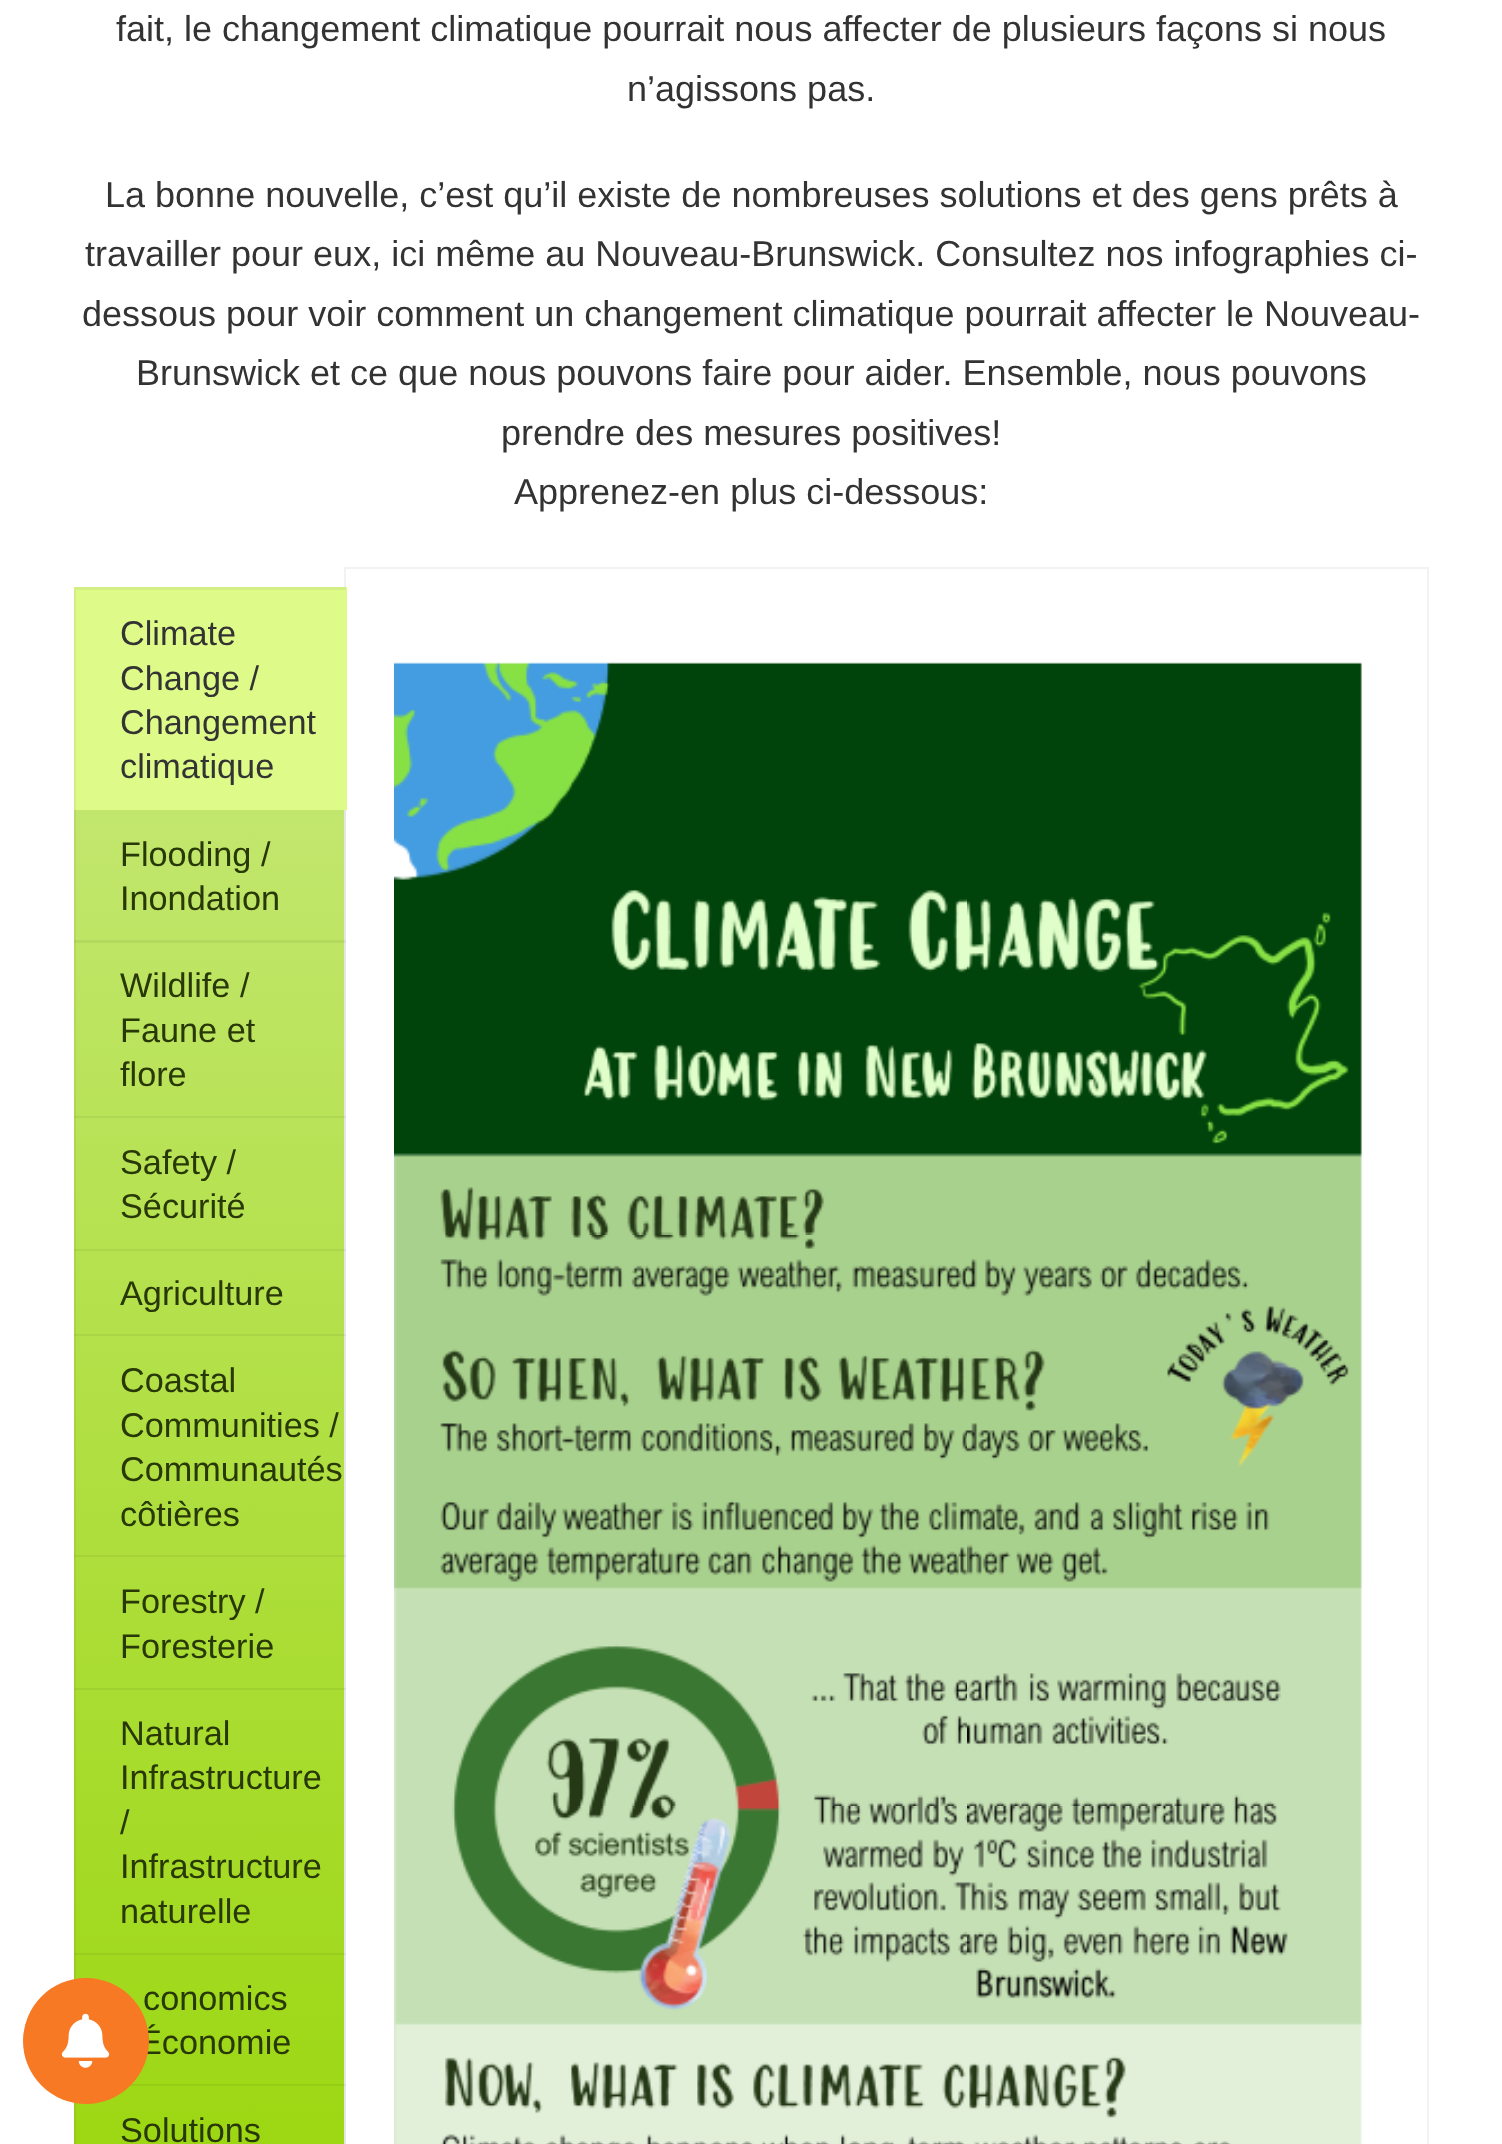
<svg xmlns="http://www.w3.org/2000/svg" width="1502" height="2144">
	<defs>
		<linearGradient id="g1" gradientUnits="userSpaceOnUse" x1="209" y1="590" x2="209" y2="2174"><stop offset="0" stop-color="#C8E97C" /><stop offset="1" stop-color="#9CD711" /></linearGradient>
	</defs>
	<rect width="100%" height="100%" fill="#FFFFFF" />
	<g font-family="Liberation Sans" font-size="36" fill="#333333">
		<text x="116" y="41">fait, le changement climatique pourrait nous affecter de plusieurs façons si nous</text>
		<text x="627" y="101">n’agissons pas.</text>
		<text x="105" y="207">La bonne nouvelle, c’est qu’il existe de nombreuses solutions et des gens prêts à</text>
		<text x="85" y="266">travailler pour eux, ici même au Nouveau-Brunswick. Consultez nos infographies ci-</text>
		<text x="82" y="326">dessous pour voir comment un changement climatique pourrait affecter le Nouveau-</text>
		<text x="136" y="385">Brunswick et ce que nous pouvons faire pour aider. Ensemble, nous pouvons</text>
		<text x="501" y="445">prendre des mesures positives!</text>
		<text x="514" y="504">Apprenez-en plus ci-dessous:</text>
	</g>
	<rect x="74" y="810" width="270" height="1334" fill="url(#g1)" />
	<rect x="345" y="568" width="1083" height="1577" fill="none" stroke="#F2F2F2" stroke-width="2" />
	<path d="M346 808V943H344V810Z" fill="#000000" fill-opacity="0.05" />
	<path d="M74 943V808L76 810V943Z" fill="#000000" fill-opacity="0.05" />
	<rect x="74" y="587" width="273" height="223" fill="#DEFA89" />
	<path d="M74 587H346V590H76Z" fill="#D3EE82" />
	<path d="M74 810V587L76 590V810Z" fill="#000000" fill-opacity="0.05" />
	<g font-family="Liberation Sans" font-size="34.25" fill="#333333">
		<text x="120" y="645">Climate</text>
		<text x="120" y="690">Change /</text>
		<text x="120" y="734">Changement</text>
		<text x="120" y="778">climatique</text>
	</g>
	<g font-family="Liberation Sans" font-size="34.25" fill="#293807">
		<text x="120" y="866">Flooding /</text>
		<text x="120" y="910">Inondation</text>
	</g>
	<path d="M74 940H346L344 943H76Z" fill="#000000" fill-opacity="0.05" />
	<path d="M346 940V1118H344V943Z" fill="#000000" fill-opacity="0.05" />
	<path d="M74 1118V940L76 943V1118Z" fill="#000000" fill-opacity="0.05" />
	<g font-family="Liberation Sans" font-size="34.25" fill="#293807">
		<text x="120" y="997">Wildlife /</text>
		<text x="120" y="1042">Faune et</text>
		<text x="120" y="1086">flore</text>
	</g>
	<path d="M74 1116H346L344 1118H76Z" fill="#000000" fill-opacity="0.05" />
	<path d="M346 1116V1251H344V1118Z" fill="#000000" fill-opacity="0.05" />
	<path d="M74 1251V1116L76 1118V1251Z" fill="#000000" fill-opacity="0.05" />
	<g font-family="Liberation Sans" font-size="34.25" fill="#293807">
		<text x="120" y="1174">Safety /</text>
		<text x="120" y="1218">Sécurité</text>
	</g>
	<path d="M74 1249H346L344 1251H76Z" fill="#000000" fill-opacity="0.05" />
	<path d="M346 1249V1336H344V1251Z" fill="#000000" fill-opacity="0.05" />
	<path d="M74 1336V1249L76 1251V1336Z" fill="#000000" fill-opacity="0.05" />
	<text x="120" y="1305" font-family="Liberation Sans" font-size="34.25" fill="#293807">Agriculture</text>
	<path d="M74 1334H346L344 1336H76Z" fill="#000000" fill-opacity="0.05" />
	<path d="M346 1334V1557H344V1336Z" fill="#000000" fill-opacity="0.05" />
	<path d="M74 1557V1334L76 1336V1557Z" fill="#000000" fill-opacity="0.05" />
	<g font-family="Liberation Sans" font-size="34.25" fill="#293807">
		<text x="120" y="1392">Coastal</text>
		<text x="120" y="1437">Communities /</text>
		<text x="120" y="1481">Communautés</text>
		<text x="120" y="1526">côtières</text>
	</g>
	<path d="M74 1555H346L344 1557H76Z" fill="#000000" fill-opacity="0.05" />
	<path d="M346 1555V1690H344V1557Z" fill="#000000" fill-opacity="0.05" />
	<path d="M74 1690V1555L76 1557V1690Z" fill="#000000" fill-opacity="0.05" />
	<g font-family="Liberation Sans" font-size="34.25" fill="#293807">
		<text x="120" y="1613">Forestry /</text>
		<text x="120" y="1658">Foresterie</text>
	</g>
	<path d="M74 1688H346L344 1690H76Z" fill="#000000" fill-opacity="0.05" />
	<path d="M346 1688V1955H344V1690Z" fill="#000000" fill-opacity="0.05" />
	<path d="M74 1955V1688L76 1690V1955Z" fill="#000000" fill-opacity="0.05" />
	<g font-family="Liberation Sans" font-size="34.25" fill="#293807">
		<text x="120" y="1745">Natural</text>
		<text x="120" y="1789">Infrastructure</text>
		<text x="120" y="1834">/</text>
		<text x="120" y="1878">Infrastructure</text>
		<text x="120" y="1923">naturelle</text>
	</g>
	<path d="M74 1953H346L344 1955H76Z" fill="#000000" fill-opacity="0.05" />
	<path d="M346 1953V2086H344V1955Z" fill="#000000" fill-opacity="0.05" />
	<path d="M74 2086V1953L76 1955V2086Z" fill="#000000" fill-opacity="0.05" />
	<g font-family="Liberation Sans" font-size="34.25" fill="#293807">
		<text x="143" y="2010">conomics</text>
		<text x="139" y="2054">Économie</text>
	</g>
	<path d="M74 2084H346L344 2086H76Z" fill="#000000" fill-opacity="0.05" />
	<path d="M346 2084V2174H344V2086Z" fill="#000000" fill-opacity="0.05" />
	<path d="M74 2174V2084L76 2086V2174Z" fill="#000000" fill-opacity="0.05" />
	<text x="120" y="2142" font-family="Liberation Sans" font-size="34.25" fill="#293807">Solutions</text>
	<image x="394" y="662" width="968" height="1482" href="assets/img1.png" />
	<circle cx="86" cy="2041" r="63" fill="#F77924" />
	<image x="61" y="2013" width="49" height="55" href="assets/img2.png" />
</svg>
